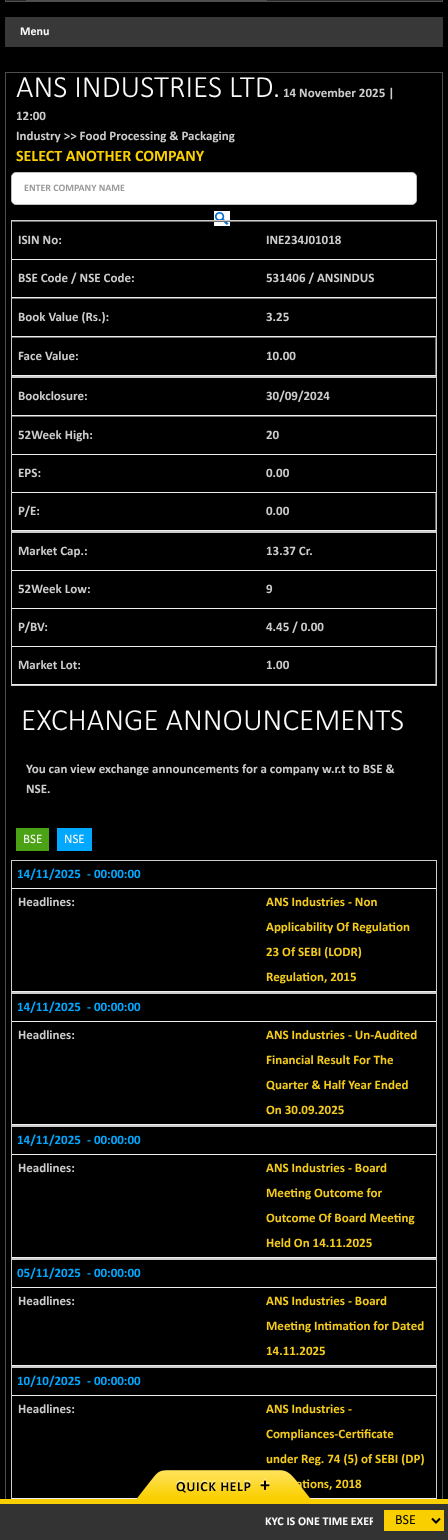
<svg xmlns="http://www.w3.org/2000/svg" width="448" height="1540">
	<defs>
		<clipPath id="clip1"><rect x="6" y="1512" width="367" height="20" /></clipPath>
	</defs>
	<rect width="100%" height="100%" fill="#000000" />
	<rect x="5.5" y="-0.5" width="437" height="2" fill="#2C2C2C" stroke="#4F4F4F" />
	<rect x="26" y="0" width="241" height="1" fill="#4F4F4F" />
	<rect x="5" y="17" width="438" height="30" fill="#383838" />
	<text x="20" y="35" font-family="Calibri" font-size="12" font-weight="700" fill="#FAFAFA">Menu</text>
	<rect x="5.5" y="72.5" width="437" height="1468" fill="none" stroke="#4F4F4F" />
	<text x="16" y="97" font-family="Calibri" font-size="31" font-weight="300" fill="#FAFAFA">ANS INDUSTRIES LTD.</text>
	<g font-family="Calibri" font-size="13" font-weight="700" fill="#CCCCCC">
		<text x="283" y="97">14 November 2025 |</text>
		<text x="16" y="120">12:00</text>
		<text x="16" y="140">Industry &gt;&gt; Food Processing &amp; Packaging</text>
	</g>
	<text x="16" y="161" font-family="Calibri" font-size="16" font-weight="700" fill="#FACF00">SELECT ANOTHER COMPANY</text>
	<rect x="11.5" y="172.5" width="405" height="32" rx="4.5" fill="#FFFFFF" stroke="#BEBEBE" />
	<text x="24" y="191" font-family="Calibri" font-size="10" font-weight="700" fill="#9B9B9B">ENTER COMPANY NAME</text>
	<image x="214" y="211" width="16" height="15" href="assets/img1.png" />
	<rect x="11.5" y="220.5" width="425" height="156" fill="none" stroke="#CCCCCC" />
	<rect x="12" y="221" width="424" height="1" fill="#737373" />
	<rect x="12" y="259" width="424" height="1" fill="#EEEEEE" />
	<g font-family="Calibri" font-size="13" font-weight="700" fill="#CCCCCC">
		<text x="18" y="244">ISIN No:</text>
		<text x="266" y="244">INE234J01018</text>
	</g>
	<rect x="12" y="297" width="424" height="1" fill="#EEEEEE" />
	<g font-family="Calibri" font-size="13" font-weight="700" fill="#CCCCCC">
		<text x="18" y="282">BSE Code / NSE Code:</text>
		<text x="266" y="282">531406 / ANSINDUS</text>
	</g>
	<rect x="12" y="298" width="424" height="1" fill="#737373" />
	<rect x="12" y="336" width="424" height="1" fill="#EEEEEE" />
	<g font-family="Calibri" font-size="13" font-weight="700" fill="#CCCCCC">
		<text x="18" y="321">Book Value (Rs.):</text>
		<text x="266" y="321">3.25</text>
	</g>
	<rect x="12" y="337" width="424" height="1" fill="#737373" />
	<rect x="435" y="337" width="1" height="39" fill="#737373" />
	<rect x="12" y="375" width="424" height="1" fill="#EEEEEE" />
	<g font-family="Calibri" font-size="13" font-weight="700" fill="#CCCCCC">
		<text x="18" y="360">Face Value:</text>
		<text x="266" y="360">10.00</text>
	</g>
	<rect x="11.5" y="377.5" width="425" height="154" fill="none" stroke="#CCCCCC" />
	<rect x="12" y="415" width="424" height="1" fill="#EEEEEE" />
	<g font-family="Calibri" font-size="13" font-weight="700" fill="#CCCCCC">
		<text x="18" y="400">Bookclosure:</text>
		<text x="266" y="400">30/09/2024</text>
	</g>
	<rect x="12" y="416" width="424" height="1" fill="#737373" />
	<rect x="12" y="454" width="424" height="1" fill="#EEEEEE" />
	<g font-family="Calibri" font-size="13" font-weight="700" fill="#CCCCCC">
		<text x="18" y="439">52Week High:</text>
		<text x="266" y="439">20</text>
	</g>
	<rect x="12" y="492" width="424" height="1" fill="#EEEEEE" />
	<g font-family="Calibri" font-size="13" font-weight="700" fill="#CCCCCC">
		<text x="18" y="477">EPS:</text>
		<text x="266" y="477">0.00</text>
	</g>
	<rect x="435" y="493" width="1" height="38" fill="#737373" />
	<rect x="12" y="530" width="424" height="1" fill="#EEEEEE" />
	<g font-family="Calibri" font-size="13" font-weight="700" fill="#CCCCCC">
		<text x="18" y="515">P/E:</text>
		<text x="266" y="515">0.00</text>
	</g>
	<rect x="11.5" y="532.5" width="425" height="153" fill="none" stroke="#CCCCCC" />
	<rect x="12" y="570" width="424" height="1" fill="#EEEEEE" />
	<g font-family="Calibri" font-size="13" font-weight="700" fill="#CCCCCC">
		<text x="18" y="555">Market Cap.:</text>
		<text x="266" y="555">13.37 Cr.</text>
	</g>
	<rect x="12" y="608" width="424" height="1" fill="#EEEEEE" />
	<g font-family="Calibri" font-size="13" font-weight="700" fill="#CCCCCC">
		<text x="18" y="593">52Week Low:</text>
		<text x="266" y="593">9</text>
	</g>
	<rect x="12" y="646" width="424" height="1" fill="#EEEEEE" />
	<g font-family="Calibri" font-size="13" font-weight="700" fill="#CCCCCC">
		<text x="18" y="631">P/BV:</text>
		<text x="266" y="631">4.45 / 0.00</text>
	</g>
	<rect x="435" y="647" width="1" height="38" fill="#737373" />
	<rect x="12" y="684" width="424" height="1" fill="#EEEEEE" />
	<g font-family="Calibri" font-size="13" font-weight="700" fill="#CCCCCC">
		<text x="18" y="669">Market Lot:</text>
		<text x="266" y="669">1.00</text>
	</g>
	<text x="21" y="730" font-family="Calibri" font-size="31" font-weight="300" fill="#FAFAFA">EXCHANGE ANNOUNCEMENTS</text>
	<g font-family="Calibri" font-size="13" font-weight="700" fill="#CCCCCC">
		<text x="26" y="773">You can view exchange announcements for a company w.r.t to BSE &amp;</text>
		<text x="26" y="793">NSE.</text>
	</g>
	<rect x="16" y="828" width="33" height="23" fill="#4BA215" />
	<text x="23" y="843" font-family="Calibri" font-size="13" fill="#FAFAFA">BSE</text>
	<rect x="57" y="828" width="35" height="23" fill="#01A8FF" />
	<text x="64" y="843" font-family="Calibri" font-size="13" fill="#FAFAFA">NSE</text>
	<rect x="11.5" y="860.5" width="425" height="132" fill="none" stroke="#CCCCCC" />
	<rect x="12" y="888" width="424" height="1" fill="#EEEEEE" />
	<g font-family="Calibri" font-size="13" font-weight="700" fill="#01A8FF">
		<text x="17" y="878">14/11/2025</text>
		<text x="87" y="878">- 00:00:00</text>
	</g>
	<rect x="12" y="991" width="424" height="1" fill="#EEEEEE" />
	<text x="18" y="906" font-family="Calibri" font-size="13" font-weight="700" fill="#CCCCCC">Headlines:</text>
	<g font-family="Calibri" font-size="13" font-weight="700" fill="#F3CB1C">
		<text x="266" y="906">ANS Industries - Non</text>
		<text x="266" y="931">Applicability Of Regulation</text>
		<text x="266" y="956">23 Of SEBI (LODR)</text>
		<text x="266" y="981">Regulation, 2015</text>
	</g>
	<rect x="11.5" y="993.5" width="425" height="132" fill="none" stroke="#CCCCCC" />
	<rect x="12" y="1021" width="424" height="1" fill="#EEEEEE" />
	<g font-family="Calibri" font-size="13" font-weight="700" fill="#01A8FF">
		<text x="17" y="1011">14/11/2025</text>
		<text x="87" y="1011">- 00:00:00</text>
	</g>
	<rect x="12" y="1124" width="424" height="1" fill="#EEEEEE" />
	<text x="18" y="1039" font-family="Calibri" font-size="13" font-weight="700" fill="#CCCCCC">Headlines:</text>
	<g font-family="Calibri" font-size="13" font-weight="700" fill="#F3CB1C">
		<text x="266" y="1039">ANS Industries - Un-Audited</text>
		<text x="266" y="1064">Financial Result For The</text>
		<text x="266" y="1089">Quarter &amp; Half Year Ended</text>
		<text x="266" y="1114">On 30.09.2025</text>
	</g>
	<rect x="11.5" y="1126.5" width="425" height="132" fill="none" stroke="#CCCCCC" />
	<rect x="12" y="1154" width="424" height="1" fill="#EEEEEE" />
	<g font-family="Calibri" font-size="13" font-weight="700" fill="#01A8FF">
		<text x="17" y="1144">14/11/2025</text>
		<text x="87" y="1144">- 00:00:00</text>
	</g>
	<rect x="12" y="1257" width="424" height="1" fill="#EEEEEE" />
	<text x="18" y="1172" font-family="Calibri" font-size="13" font-weight="700" fill="#CCCCCC">Headlines:</text>
	<g font-family="Calibri" font-size="13" font-weight="700" fill="#F3CB1C">
		<text x="266" y="1172">ANS Industries - Board</text>
		<text x="266" y="1197">Meeting Outcome for</text>
		<text x="266" y="1222">Outcome Of Board Meeting</text>
		<text x="266" y="1247">Held On 14.11.2025</text>
	</g>
	<rect x="11.5" y="1259.5" width="425" height="107" fill="none" stroke="#CCCCCC" />
	<rect x="12" y="1287" width="424" height="1" fill="#EEEEEE" />
	<g font-family="Calibri" font-size="13" font-weight="700" fill="#01A8FF">
		<text x="17" y="1277">05/11/2025</text>
		<text x="87" y="1277">- 00:00:00</text>
	</g>
	<rect x="12" y="1365" width="424" height="1" fill="#EEEEEE" />
	<text x="18" y="1305" font-family="Calibri" font-size="13" font-weight="700" fill="#CCCCCC">Headlines:</text>
	<g font-family="Calibri" font-size="13" font-weight="700" fill="#F3CB1C">
		<text x="266" y="1305">ANS Industries - Board</text>
		<text x="266" y="1330">Meeting Intimation for Dated</text>
		<text x="266" y="1355">14.11.2025</text>
	</g>
	<rect x="11.5" y="1367.5" width="425" height="132" fill="none" stroke="#CCCCCC" />
	<rect x="12" y="1395" width="424" height="1" fill="#EEEEEE" />
	<g font-family="Calibri" font-size="13" font-weight="700" fill="#01A8FF">
		<text x="17" y="1385">10/10/2025</text>
		<text x="87" y="1385">- 00:00:00</text>
	</g>
	<rect x="12" y="1498" width="424" height="1" fill="#EEEEEE" />
	<text x="18" y="1413" font-family="Calibri" font-size="13" font-weight="700" fill="#CCCCCC">Headlines:</text>
	<g font-family="Calibri" font-size="13" font-weight="700" fill="#F3CB1C">
		<text x="266" y="1413">ANS Industries -</text>
		<text x="266" y="1438">Compliances-Certificate</text>
		<text x="266" y="1463">under Reg. 74 (5) of SEBI (DP)</text>
		<text x="296" y="1488">ations, 2018</text>
	</g>
	<image x="137" y="1470" width="174" height="29" href="assets/img2.png" />
	<rect x="0" y="1499" width="448" height="5" fill="#FACF00" />
	<rect x="0" y="1504" width="448" height="36" fill="#333333" />
	<g clip-path="url(#clip1)">
		<text x="265" y="1525" font-family="Calibri" font-size="12" font-weight="700" fill="#FAFAFA">KYC IS ONE TIME EXER</text>
	</g>
	<rect x="384" y="1510" width="60" height="21" fill="#F9CF00" />
	<path d="M432 1518.5L436 1522.5L440 1518.5" fill="none" stroke="#000000" stroke-width="2" />
	<text x="395" y="1524" font-family="Calibri" font-size="14" fill="#000000">BSE</text>
</svg>
